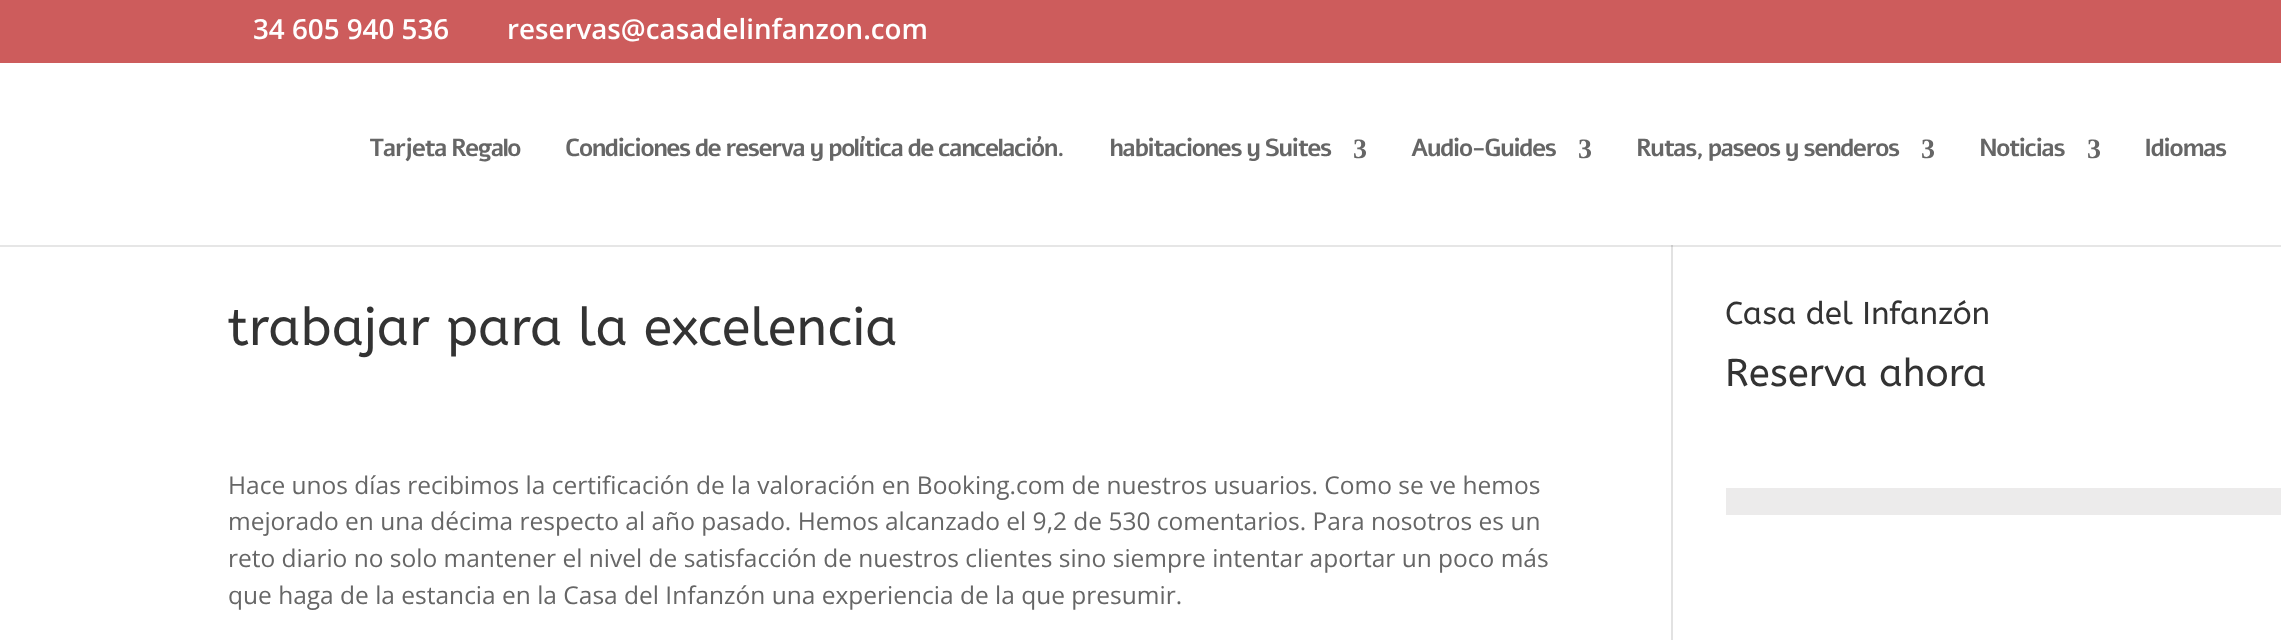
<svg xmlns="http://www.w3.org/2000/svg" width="2281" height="640">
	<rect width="100%" height="100%" fill="#FFFFFF" />
	<rect x="0" y="245" width="2281" height="2" fill="#E6E6E6" />
	<rect x="0" y="0" width="2281" height="63" fill="#CD5C5C" />
	<g font-family="Open Sans" font-size="27.75" font-weight="600" fill="#FFFFFF">
		<text x="253" y="39">34 605 940 536</text>
		<text x="507" y="39">reservas@casadelinfanzon.com</text>
	</g>
	<g font-family="Alef" font-size="24.5" font-weight="700" letter-spacing="-1.75" fill="#666666">
		<text x="369" y="156">Tarjeta Regalo</text>
		<text x="565" y="156">Condiciones de reserva y política de cancelación.</text>
		<text x="1109" y="156">habitaciones y Suites</text>
	</g>
	<text x="1353" y="158" font-family="Liberation Serif" font-size="28" font-weight="700" letter-spacing="-1.75" fill="#666666">3</text>
	<text x="1411" y="156" font-family="Alef" font-size="24.5" font-weight="700" letter-spacing="-1.75" fill="#666666">Audio-Guides</text>
	<text x="1578" y="158" font-family="Liberation Serif" font-size="28" font-weight="700" letter-spacing="-1.75" fill="#666666">3</text>
	<text x="1636" y="156" font-family="Alef" font-size="24.5" font-weight="700" letter-spacing="-1.75" fill="#666666">Rutas, paseos y senderos</text>
	<text x="1921" y="158" font-family="Liberation Serif" font-size="28" font-weight="700" letter-spacing="-1.75" fill="#666666">3</text>
	<text x="1979" y="156" font-family="Alef" font-size="24.5" font-weight="700" letter-spacing="-1.75" fill="#666666">Noticias</text>
	<text x="2087" y="158" font-family="Liberation Serif" font-size="28" font-weight="700" letter-spacing="-1.75" fill="#666666">3</text>
	<text x="2144" y="156" font-family="Alef" font-size="24.5" font-weight="700" letter-spacing="-1.75" fill="#666666">Idiomas</text>
	<rect x="1671" y="247" width="2" height="393" fill="#E2E2E2" />
	<rect x="1671" y="245" width="2" height="2" fill="#CBCBCB" />
	<text x="228" y="345" font-family="ABeeZee" font-size="52.5" fill="#333333">trabajar para la excelencia</text>
	<g font-family="Open Sans" font-size="24.5" fill="#666666">
		<text x="228" y="494">Hace unos días recibimos la certificación de la valoración en Booking.com de nuestros usuarios. Como se ve hemos</text>
		<text x="228" y="530">mejorado en una décima respecto al año pasado. Hemos alcanzado el 9,2 de 530 comentarios. Para nosotros es un</text>
		<text x="228" y="567">reto diario no solo mantener el nivel de satisfacción de nuestros clientes sino siempre intentar aportar un poco más</text>
		<text x="228" y="604">que haga de la estancia en la Casa del Infanzón una experiencia de la que presumir.</text>
	</g>
	<text x="1725" y="324" font-family="ABeeZee" font-size="31.5" fill="#333333">Casa del Infanzón</text>
	<text x="1725" y="386" font-family="ABeeZee" font-size="38.5" fill="#333333">Reserva ahora</text>
	<rect x="1726" y="488" width="555" height="27" fill="#ECEBEB" />
</svg>
